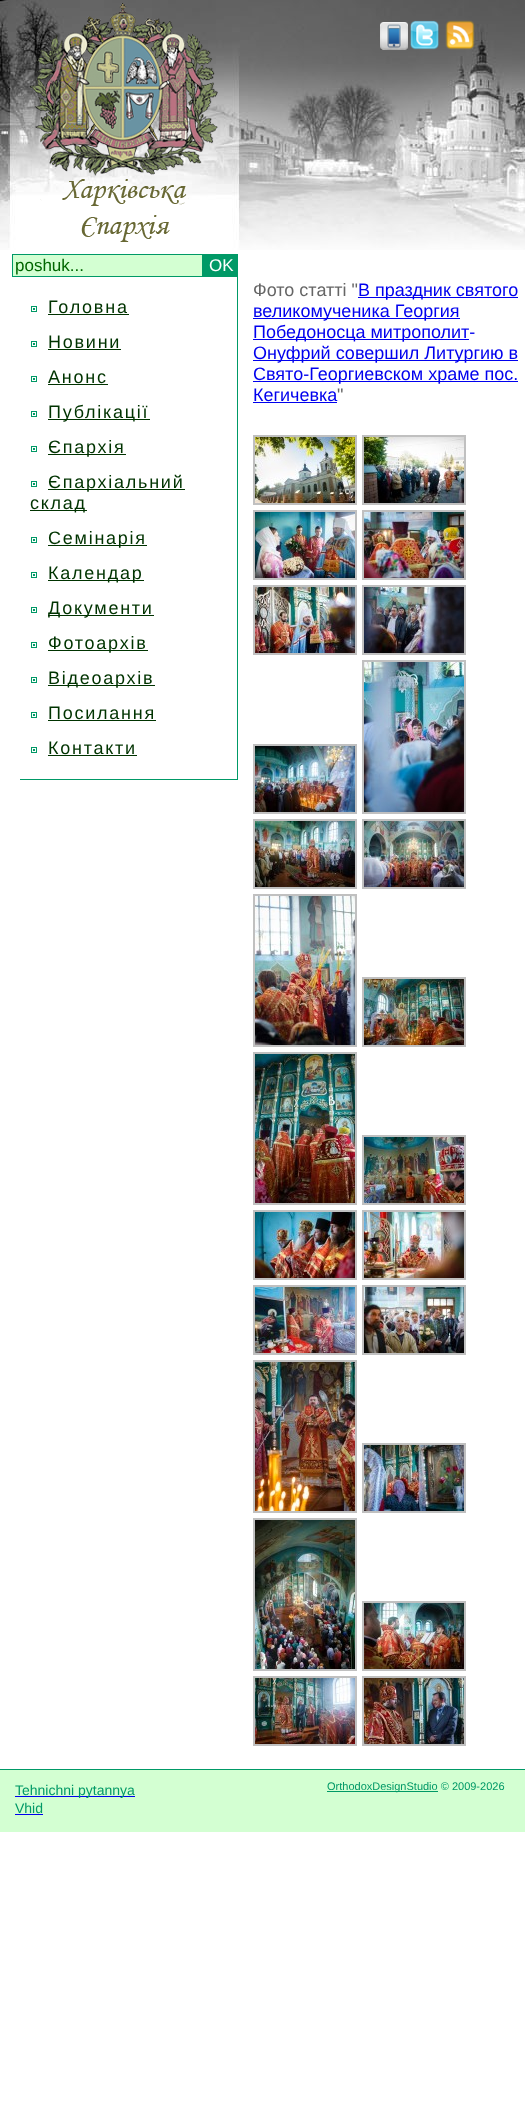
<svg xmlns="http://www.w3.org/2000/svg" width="525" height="2126">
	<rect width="100%" height="100%" fill="#FFFFFF" />
	<image x="0" y="0" width="525" height="250" href="assets/img1.png" />
	<image x="380" y="22" width="28" height="28" href="assets/img2.png" />
	<image x="410" y="20" width="29" height="30" href="assets/img3.png" />
	<image x="445" y="20" width="30" height="30" href="assets/img4.png" />
	<image x="30" y="3" width="188" height="239" href="assets/img5.png" />
	<rect x="12.5" y="254.5" width="190" height="22" fill="#D3FFD2" stroke="#009966" />
	<text x="15" y="271" font-family="Liberation Sans" font-size="17" fill="#006600">poshuk...</text>
	<rect x="203" y="254" width="35" height="23" fill="#009966" />
	<text x="209" y="271" font-family="Liberation Sans" font-size="17" fill="#FFFFFF">OK</text>
	<rect x="237" y="277" width="1" height="503" fill="#009966" />
	<rect x="20" y="779" width="218" height="1" fill="#009966" />
	<image x="31" y="306" width="6" height="6" href="assets/img6.png" />
	<text x="48" y="313" font-family="Liberation Sans" font-size="18" letter-spacing="1.75" fill="#003300">Головна</text>
	<rect x="48" y="314" width="81" height="1" fill="#003300" />
	<image x="31" y="341" width="6" height="6" href="assets/img6.png" />
	<text x="48" y="348" font-family="Liberation Sans" font-size="18" letter-spacing="1.75" fill="#003300">Новини</text>
	<rect x="48" y="349" width="73" height="1" fill="#003300" />
	<image x="31" y="376" width="6" height="6" href="assets/img6.png" />
	<text x="48" y="383" font-family="Liberation Sans" font-size="18" letter-spacing="1.75" fill="#003300">Анонс</text>
	<rect x="48" y="384" width="60" height="1" fill="#003300" />
	<image x="31" y="411" width="6" height="6" href="assets/img6.png" />
	<rect x="48" y="419" width="102" height="1" fill="#003300" />
	<text x="48" y="418" font-family="Liberation Sans" font-size="18" letter-spacing="1.75" fill="#003300">Публікації</text>
	<image x="31" y="446" width="6" height="6" href="assets/img6.png" />
	<rect x="48" y="454" width="78" height="1" fill="#003300" />
	<text x="48" y="453" font-family="Liberation Sans" font-size="18" letter-spacing="1.75" fill="#003300">Єпархія</text>
	<image x="31" y="481" width="6" height="6" href="assets/img6.png" />
	<rect x="48" y="489" width="137" height="1" fill="#003300" />
	<text x="48" y="488" font-family="Liberation Sans" font-size="18" letter-spacing="1.75" fill="#003300">Єпархіальний</text>
	<rect x="30" y="510" width="57" height="1" fill="#003300" />
	<text x="30" y="509" font-family="Liberation Sans" font-size="18" letter-spacing="1.75" fill="#003300">склад</text>
	<image x="31" y="537" width="6" height="6" href="assets/img6.png" />
	<rect x="48" y="545" width="99" height="1" fill="#003300" />
	<text x="48" y="544" font-family="Liberation Sans" font-size="18" letter-spacing="1.75" fill="#003300">Семінарія</text>
	<image x="31" y="572" width="6" height="6" href="assets/img6.png" />
	<rect x="48" y="580" width="96" height="1" fill="#003300" />
	<text x="48" y="579" font-family="Liberation Sans" font-size="18" letter-spacing="1.75" fill="#003300">Календар</text>
	<image x="31" y="607" width="6" height="6" href="assets/img6.png" />
	<rect x="48" y="615" width="106" height="1" fill="#003300" />
	<text x="48" y="614" font-family="Liberation Sans" font-size="18" letter-spacing="1.75" fill="#003300">Документи</text>
	<image x="31" y="642" width="6" height="6" href="assets/img6.png" />
	<rect x="48" y="650" width="100" height="1" fill="#003300" />
	<text x="48" y="649" font-family="Liberation Sans" font-size="18" letter-spacing="1.75" fill="#003300">Фотоархів</text>
	<image x="31" y="677" width="6" height="6" href="assets/img6.png" />
	<rect x="48" y="685" width="107" height="1" fill="#003300" />
	<text x="48" y="684" font-family="Liberation Sans" font-size="18" letter-spacing="1.75" fill="#003300">Відеоархів</text>
	<image x="31" y="712" width="6" height="6" href="assets/img6.png" />
	<text x="48" y="719" font-family="Liberation Sans" font-size="18" letter-spacing="1.75" fill="#003300">Посилання</text>
	<rect x="48" y="720" width="108" height="1" fill="#003300" />
	<image x="31" y="747" width="6" height="6" href="assets/img6.png" />
	<text x="48" y="754" font-family="Liberation Sans" font-size="18" letter-spacing="1.75" fill="#003300">Контакти</text>
	<rect x="48" y="755" width="89" height="1" fill="#003300" />
	<text x="253" y="296" font-family="Liberation Sans" font-size="18" fill="#666666">Фото статті "</text>
	<rect x="358" y="297" width="160" height="1" fill="#0000EE" />
	<text x="358" y="296" font-family="Liberation Sans" font-size="18" fill="#0000EE">В праздник святого</text>
	<rect x="253" y="318" width="207" height="1" fill="#0000EE" />
	<text x="253" y="317" font-family="Liberation Sans" font-size="18" fill="#0000EE">великомученика Георгия</text>
	<rect x="253" y="339" width="216" height="1" fill="#0000EE" />
	<text x="253" y="338" font-family="Liberation Sans" font-size="18" fill="#0000EE">Победоносца митрополит-</text>
	<rect x="253" y="360" width="265" height="1" fill="#0000EE" />
	<text x="253" y="359" font-family="Liberation Sans" font-size="18" fill="#0000EE">Онуфрий совершил Литургию в</text>
	<rect x="253" y="381" width="265" height="1" fill="#0000EE" />
	<g font-family="Liberation Sans" font-size="18" fill="#0000EE">
		<text x="253" y="380">Свято-Георгиевском храме пос.</text>
		<text x="253" y="401">Кегичевка</text>
	</g>
	<rect x="253" y="402" width="84" height="1" fill="#0000EE" />
	<text x="337" y="401" font-family="Liberation Sans" font-size="18" fill="#666666">"</text>
	<rect x="254" y="436" width="102" height="68" fill="none" stroke="#C0C0C0" stroke-width="2" />
	<rect x="363" y="436" width="102" height="68" fill="none" stroke="#C0C0C0" stroke-width="2" />
	<image x="255" y="437" width="100" height="66" href="assets/img7.png" />
	<image x="364" y="437" width="100" height="66" href="assets/img8.png" />
	<rect x="254" y="511" width="102" height="68" fill="none" stroke="#C0C0C0" stroke-width="2" />
	<rect x="363" y="511" width="102" height="68" fill="none" stroke="#C0C0C0" stroke-width="2" />
	<image x="255" y="512" width="100" height="66" href="assets/img9.png" />
	<image x="364" y="512" width="100" height="66" href="assets/img10.png" />
	<rect x="254" y="586" width="102" height="68" fill="none" stroke="#C0C0C0" stroke-width="2" />
	<rect x="363" y="586" width="102" height="68" fill="none" stroke="#C0C0C0" stroke-width="2" />
	<image x="255" y="587" width="100" height="66" href="assets/img11.png" />
	<image x="364" y="587" width="100" height="66" href="assets/img12.png" />
	<rect x="363" y="661" width="102" height="152" fill="none" stroke="#C0C0C0" stroke-width="2" />
	<rect x="254" y="745" width="102" height="68" fill="none" stroke="#C0C0C0" stroke-width="2" />
	<image x="364" y="662" width="100" height="150" href="assets/img13.png" />
	<image x="255" y="746" width="100" height="66" href="assets/img14.png" />
	<rect x="254" y="820" width="102" height="68" fill="none" stroke="#C0C0C0" stroke-width="2" />
	<rect x="363" y="820" width="102" height="68" fill="none" stroke="#C0C0C0" stroke-width="2" />
	<image x="255" y="821" width="100" height="66" href="assets/img15.png" />
	<image x="364" y="821" width="100" height="66" href="assets/img16.png" />
	<rect x="254" y="895" width="102" height="151" fill="none" stroke="#C0C0C0" stroke-width="2" />
	<image x="255" y="896" width="100" height="149" href="assets/img17.png" />
	<rect x="363" y="978" width="102" height="68" fill="none" stroke="#C0C0C0" stroke-width="2" />
	<image x="364" y="979" width="100" height="66" href="assets/img18.png" />
	<rect x="254" y="1053" width="102" height="151" fill="none" stroke="#C0C0C0" stroke-width="2" />
	<image x="255" y="1054" width="100" height="149" href="assets/img19.png" />
	<rect x="363" y="1136" width="102" height="68" fill="none" stroke="#C0C0C0" stroke-width="2" />
	<image x="364" y="1137" width="100" height="66" href="assets/img20.png" />
	<rect x="254" y="1211" width="102" height="68" fill="none" stroke="#C0C0C0" stroke-width="2" />
	<rect x="363" y="1211" width="102" height="68" fill="none" stroke="#C0C0C0" stroke-width="2" />
	<image x="255" y="1212" width="100" height="66" href="assets/img21.png" />
	<image x="364" y="1212" width="100" height="66" href="assets/img22.png" />
	<rect x="254" y="1286" width="102" height="68" fill="none" stroke="#C0C0C0" stroke-width="2" />
	<rect x="363" y="1286" width="102" height="68" fill="none" stroke="#C0C0C0" stroke-width="2" />
	<image x="255" y="1287" width="100" height="66" href="assets/img23.png" />
	<image x="364" y="1287" width="100" height="66" href="assets/img24.png" />
	<rect x="254" y="1361" width="102" height="151" fill="none" stroke="#C0C0C0" stroke-width="2" />
	<image x="255" y="1362" width="100" height="149" href="assets/img25.png" />
	<rect x="363" y="1444" width="102" height="68" fill="none" stroke="#C0C0C0" stroke-width="2" />
	<image x="364" y="1445" width="100" height="66" href="assets/img26.png" />
	<rect x="254" y="1519" width="102" height="151" fill="none" stroke="#C0C0C0" stroke-width="2" />
	<image x="255" y="1520" width="100" height="149" href="assets/img27.png" />
	<rect x="363" y="1602" width="102" height="68" fill="none" stroke="#C0C0C0" stroke-width="2" />
	<image x="364" y="1603" width="100" height="66" href="assets/img28.png" />
	<rect x="254" y="1677" width="102" height="68" fill="none" stroke="#C0C0C0" stroke-width="2" />
	<rect x="363" y="1677" width="102" height="68" fill="none" stroke="#C0C0C0" stroke-width="2" />
	<image x="255" y="1678" width="100" height="66" href="assets/img29.png" />
	<image x="364" y="1678" width="100" height="66" href="assets/img30.png" />
	<rect x="0" y="1770" width="525" height="62" fill="#D3FFD2" />
	<rect x="0" y="1769" width="525" height="1" fill="#009966" />
	<rect x="15" y="1796" width="120" height="1" fill="#0000EE" />
	<g font-family="Liberation Sans" font-size="14" fill="#009966">
		<text x="15" y="1795">Tehnichni pytannya</text>
		<text x="15" y="1813">Vhid</text>
	</g>
	<rect x="15" y="1814" width="28" height="1" fill="#0000EE" />
	<rect x="327" y="1791" width="111" height="1" fill="#009966" />
	<text x="327" y="1790" font-family="Liberation Sans" font-size="11" fill="#009966">OrthodoxDesignStudio © 2009-2026</text>
</svg>
